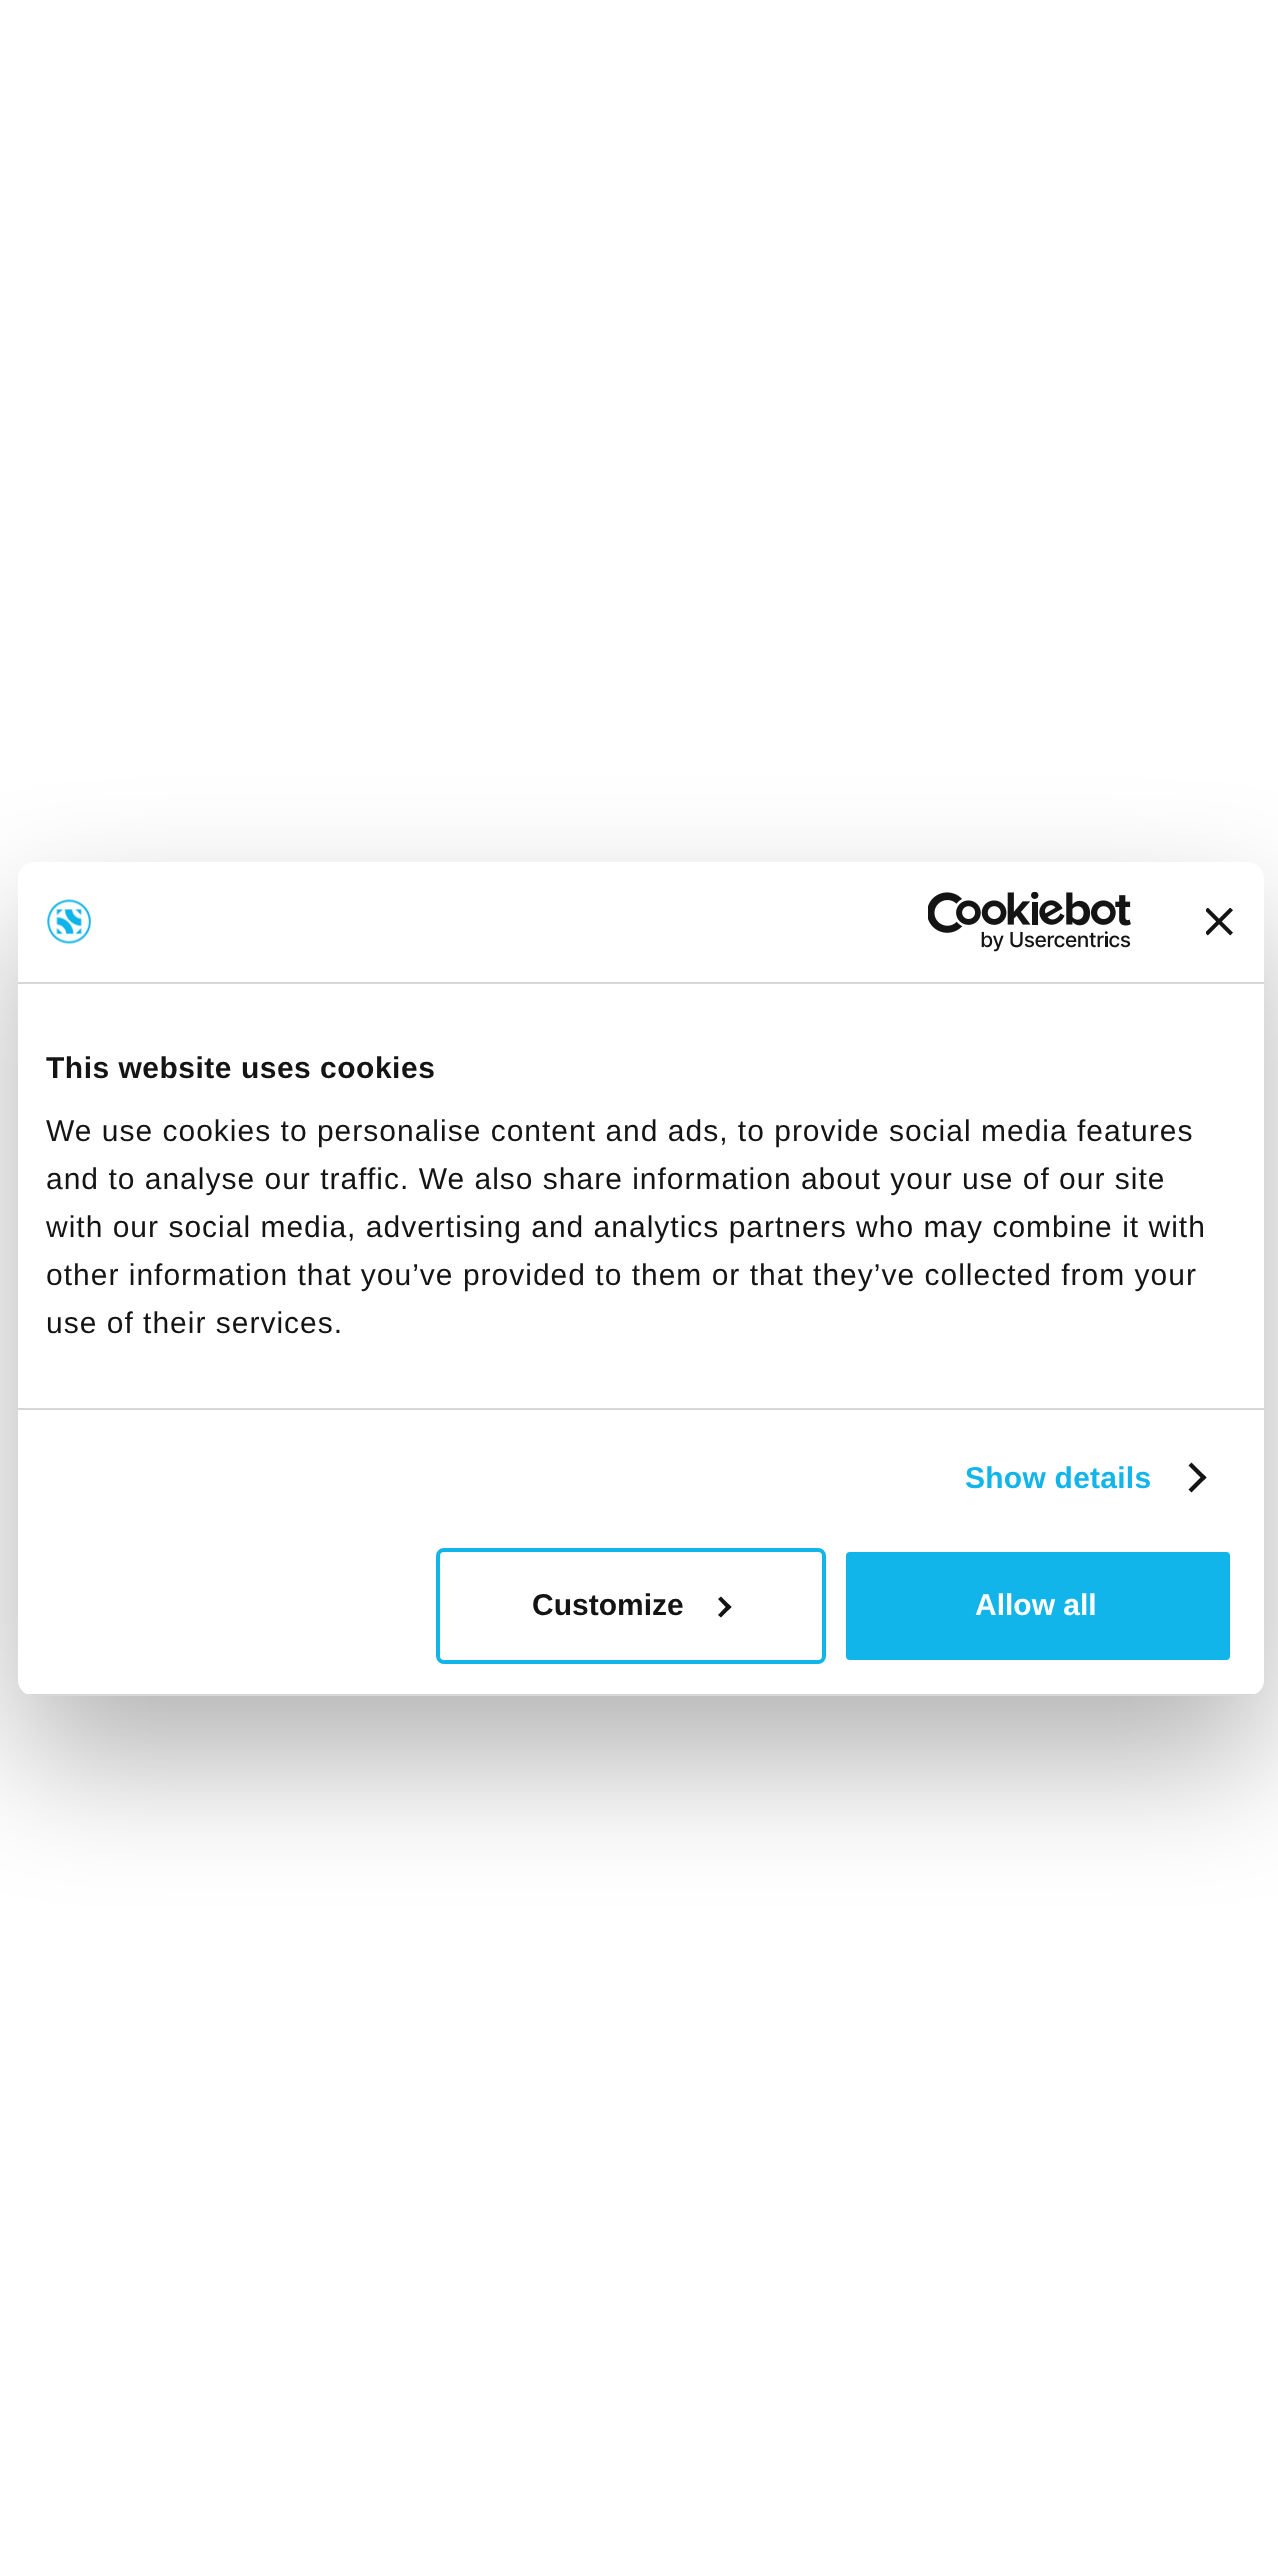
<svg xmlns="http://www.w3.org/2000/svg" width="1278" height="2556">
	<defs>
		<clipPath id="clip1"><rect x="18" y="862" width="1246" height="834" rx="16" /></clipPath>
	</defs>
	<rect width="100%" height="100%" fill="#FFFFFF" />
	<rect x="18" y="926" width="1246" height="834" rx="16" fill="#000000" fill-opacity="0.3" filter="blur(68px)" />
	<rect x="18" y="862" width="1246" height="834" rx="16" fill="#FFFFFF" />
	<rect x="18" y="982" width="1246" height="2" fill="#D6D6D6" />
	<image x="46" y="899" width="45" height="46" href="assets/img1.png" />
	<image x="928" y="892" width="203" height="60" href="assets/img2.png" />
	<image x="1206" y="908" width="27" height="28" href="assets/img3.png" />
	<rect x="18" y="1408" width="1246" height="2" fill="#D6D6D6" />
	<text x="46" y="1078" font-family="Liberation Sans" font-size="30" font-weight="700" letter-spacing="0.5" fill="#141414">This website uses cookies</text>
	<g font-family="Liberation Sans" font-size="30" letter-spacing="1" fill="#141414">
		<text x="46" y="1141">We use cookies to personalise content and ads, to provide social media features</text>
		<text x="46" y="1189">and to analyse our traffic. We also share information about your use of our site</text>
		<text x="46" y="1237">with our social media, advertising and analytics partners who may combine it with</text>
		<text x="46" y="1285">other information that you’ve provided to them or that they’ve collected from your</text>
		<text x="46" y="1333">use of their services.</text>
	</g>
	<text x="965" y="1488" font-family="Liberation Sans" font-size="30" font-weight="700" letter-spacing="0.25" fill="#11B5E9">Show details</text>
	<path d="M1191.5 1462.5L1206.5 1477.5L1203.5 1480.5L1188.5 1465.5Z" fill="#141414" />
	<path d="M1203.5 1474.5L1206.5 1477.5L1191.5 1492.5L1188.5 1489.5Z" fill="#141414" />
	<g clip-path="url(#clip1)">
		<rect x="18" y="1694" width="1246" height="2" fill="#D6D6D6" />
	</g>
	<rect x="438" y="1550" width="386" height="112" rx="6" fill="none" stroke="#11B5E9" stroke-width="4" />
	<text x="532" y="1615" font-family="Liberation Sans" font-size="30" font-weight="700" fill="#141414">Customize</text>
	<path d="M721 1596.5L731.5 1607L728.5 1610L718 1599Z" fill="#141414" />
	<path d="M728.5 1604L731.5 1607L721 1617.5L718 1615Z" fill="#141414" />
	<rect x="844" y="1550" width="388" height="112" rx="6" fill="#11B5E9" stroke="#FFFFFF" stroke-width="4" />
	<text x="975" y="1615" font-family="Liberation Sans" font-size="30" font-weight="700" fill="#FFFFFF">Allow all</text>
</svg>
